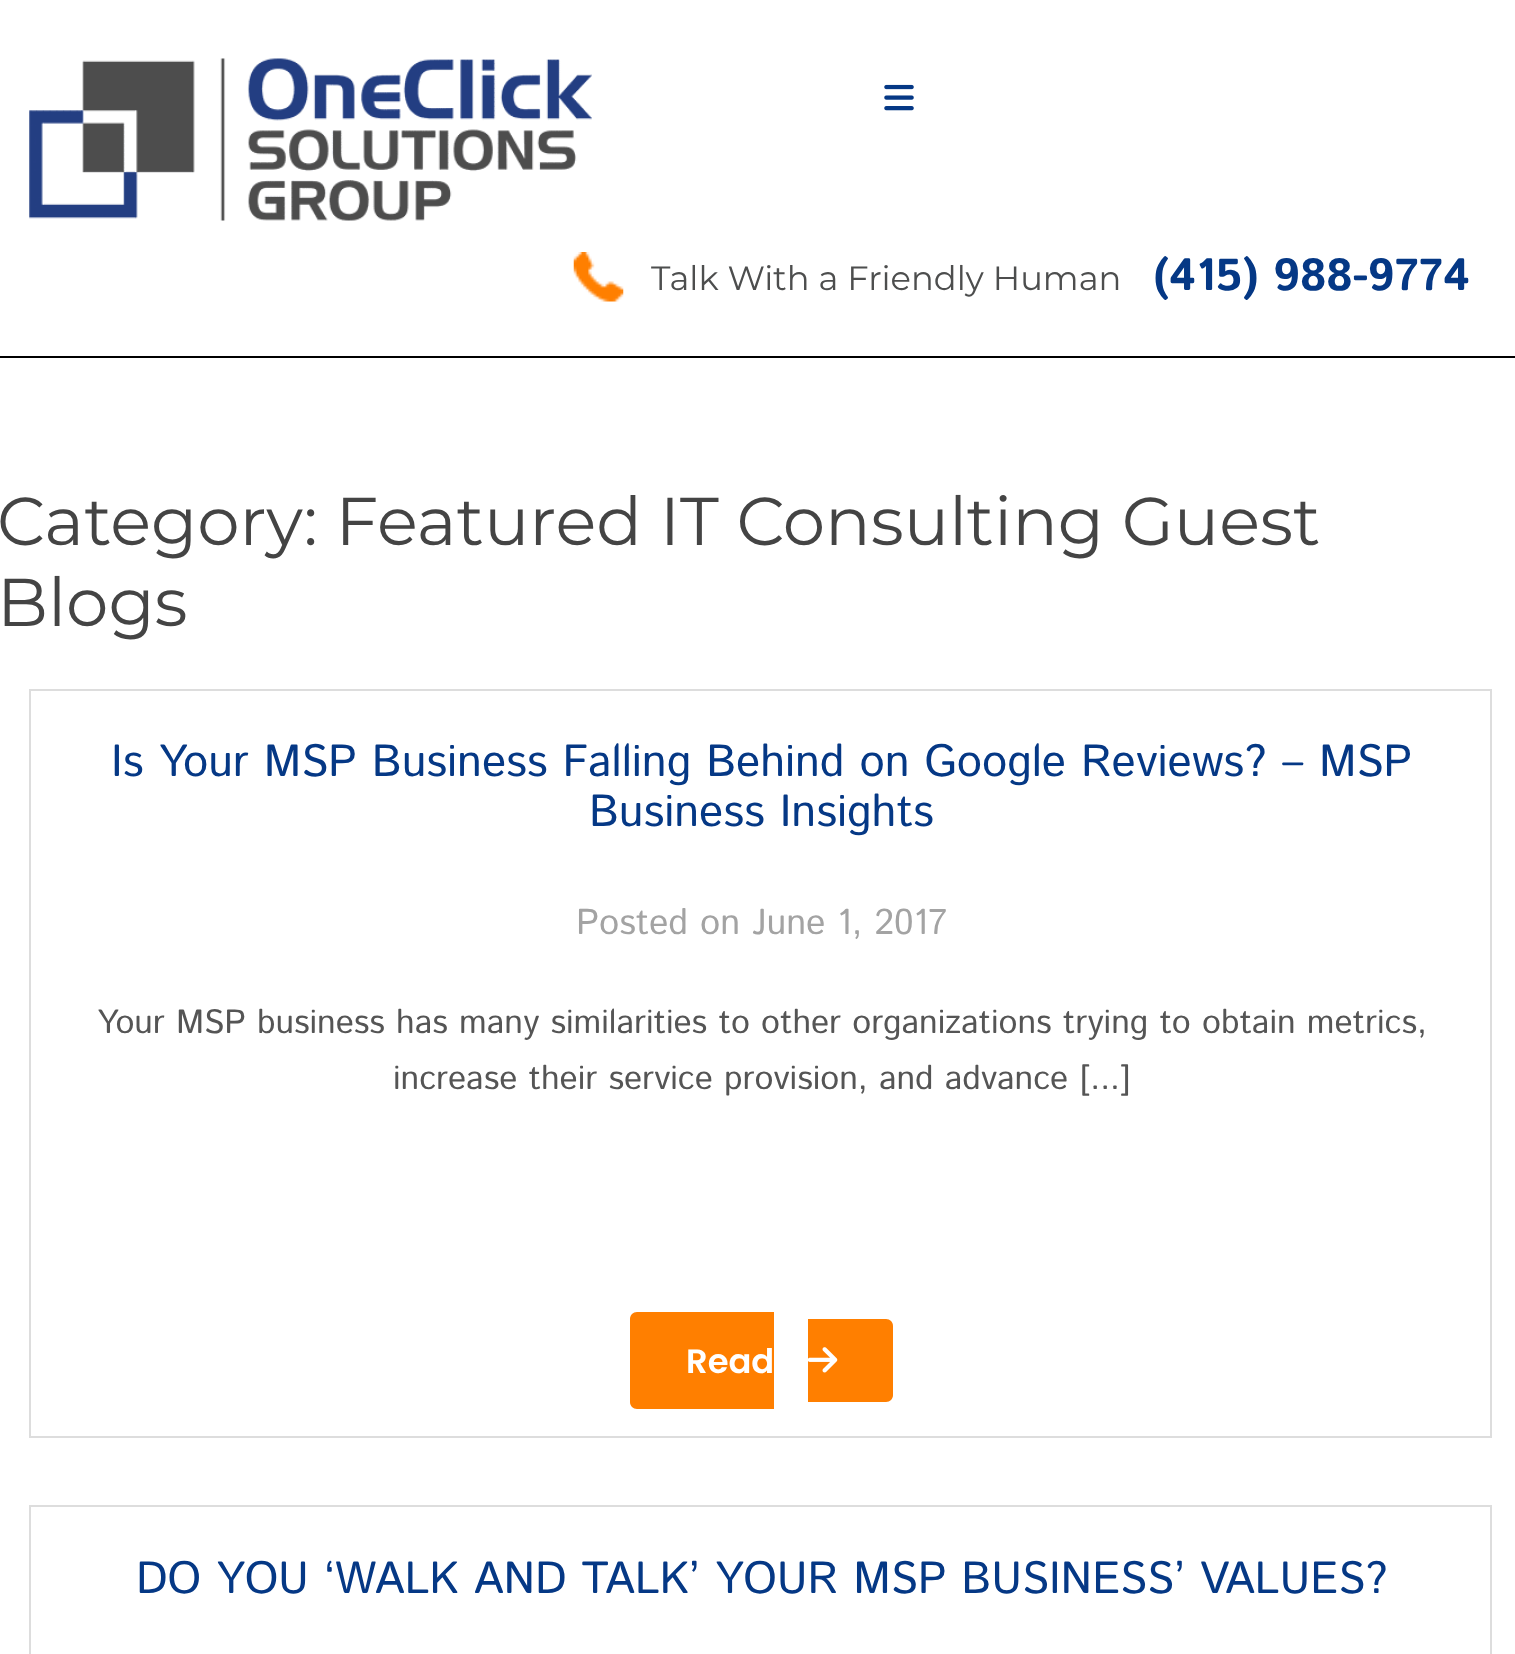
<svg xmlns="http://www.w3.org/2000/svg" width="1515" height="1654">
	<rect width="100%" height="100%" fill="#FFFFFF" />
	<rect x="0" y="356" width="1515" height="2" fill="#000000" />
	<image x="29" y="58" width="563" height="163" href="assets/img1.png" />
	<image x="884" y="84" width="30" height="27" href="assets/img2.png" />
	<image x="573" y="252" width="51" height="50" href="assets/img3.png" />
	<text x="651" y="290" font-family="Montserrat" font-size="33.75" fill="#4D4E4E">Talk With a Friendly Human</text>
	<text x="1153" y="290" font-family="Istok Web" font-size="45" font-weight="700" fill="#053885">(415) 988-9774</text>
	<g font-family="Montserrat" font-size="67.5" fill="#444444">
		<text x="-3" y="545">Category: Featured IT Consulting Guest</text>
		<text x="-3" y="626">Blogs</text>
	</g>
	<rect x="30" y="690" width="1461" height="747" fill="none" stroke="#DDDDDD" stroke-width="2" />
	<g font-family="Istok Web" font-size="45" fill="#053885">
		<text x="111" y="776">Is Your MSP Business Falling Behind on Google Reviews? – MSP</text>
		<text x="589" y="826">Business Insights</text>
	</g>
	<text x="576" y="934" font-family="Istok Web" font-size="36" fill="#A3A3A3">Posted on June 1, 2017</text>
	<g font-family="Istok Web" font-size="33.75" fill="#555555">
		<text x="97" y="1033">Your MSP business has many similarities to other organizations trying to obtain metrics,</text>
		<text x="393" y="1089">increase their service provision, and advance [...]</text>
	</g>
	<path d="M637 1312H774V1409H637C633 1409 630 1406 630 1402V1319C630 1315 633 1312 637 1312Z" fill="#FF7F00" />
	<text x="686" y="1373" font-family="Poppins" font-size="33.75" font-weight="600" fill="#FFFFFF">Read</text>
	<path d="M808 1319H886C890 1319 893 1322 893 1326V1395C893 1399 890 1402 886 1402H808Z" fill="#FF7F00" />
	<image x="808" y="1347" width="30" height="26" href="assets/img4.png" />
	<rect x="30" y="1506" width="1461" height="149" fill="none" stroke="#DDDDDD" stroke-width="2" />
	<text x="136" y="1593" font-family="Istok Web" font-size="45" fill="#053885">DO YOU ‘WALK AND TALK’ YOUR MSP BUSINESS’ VALUES?</text>
</svg>
